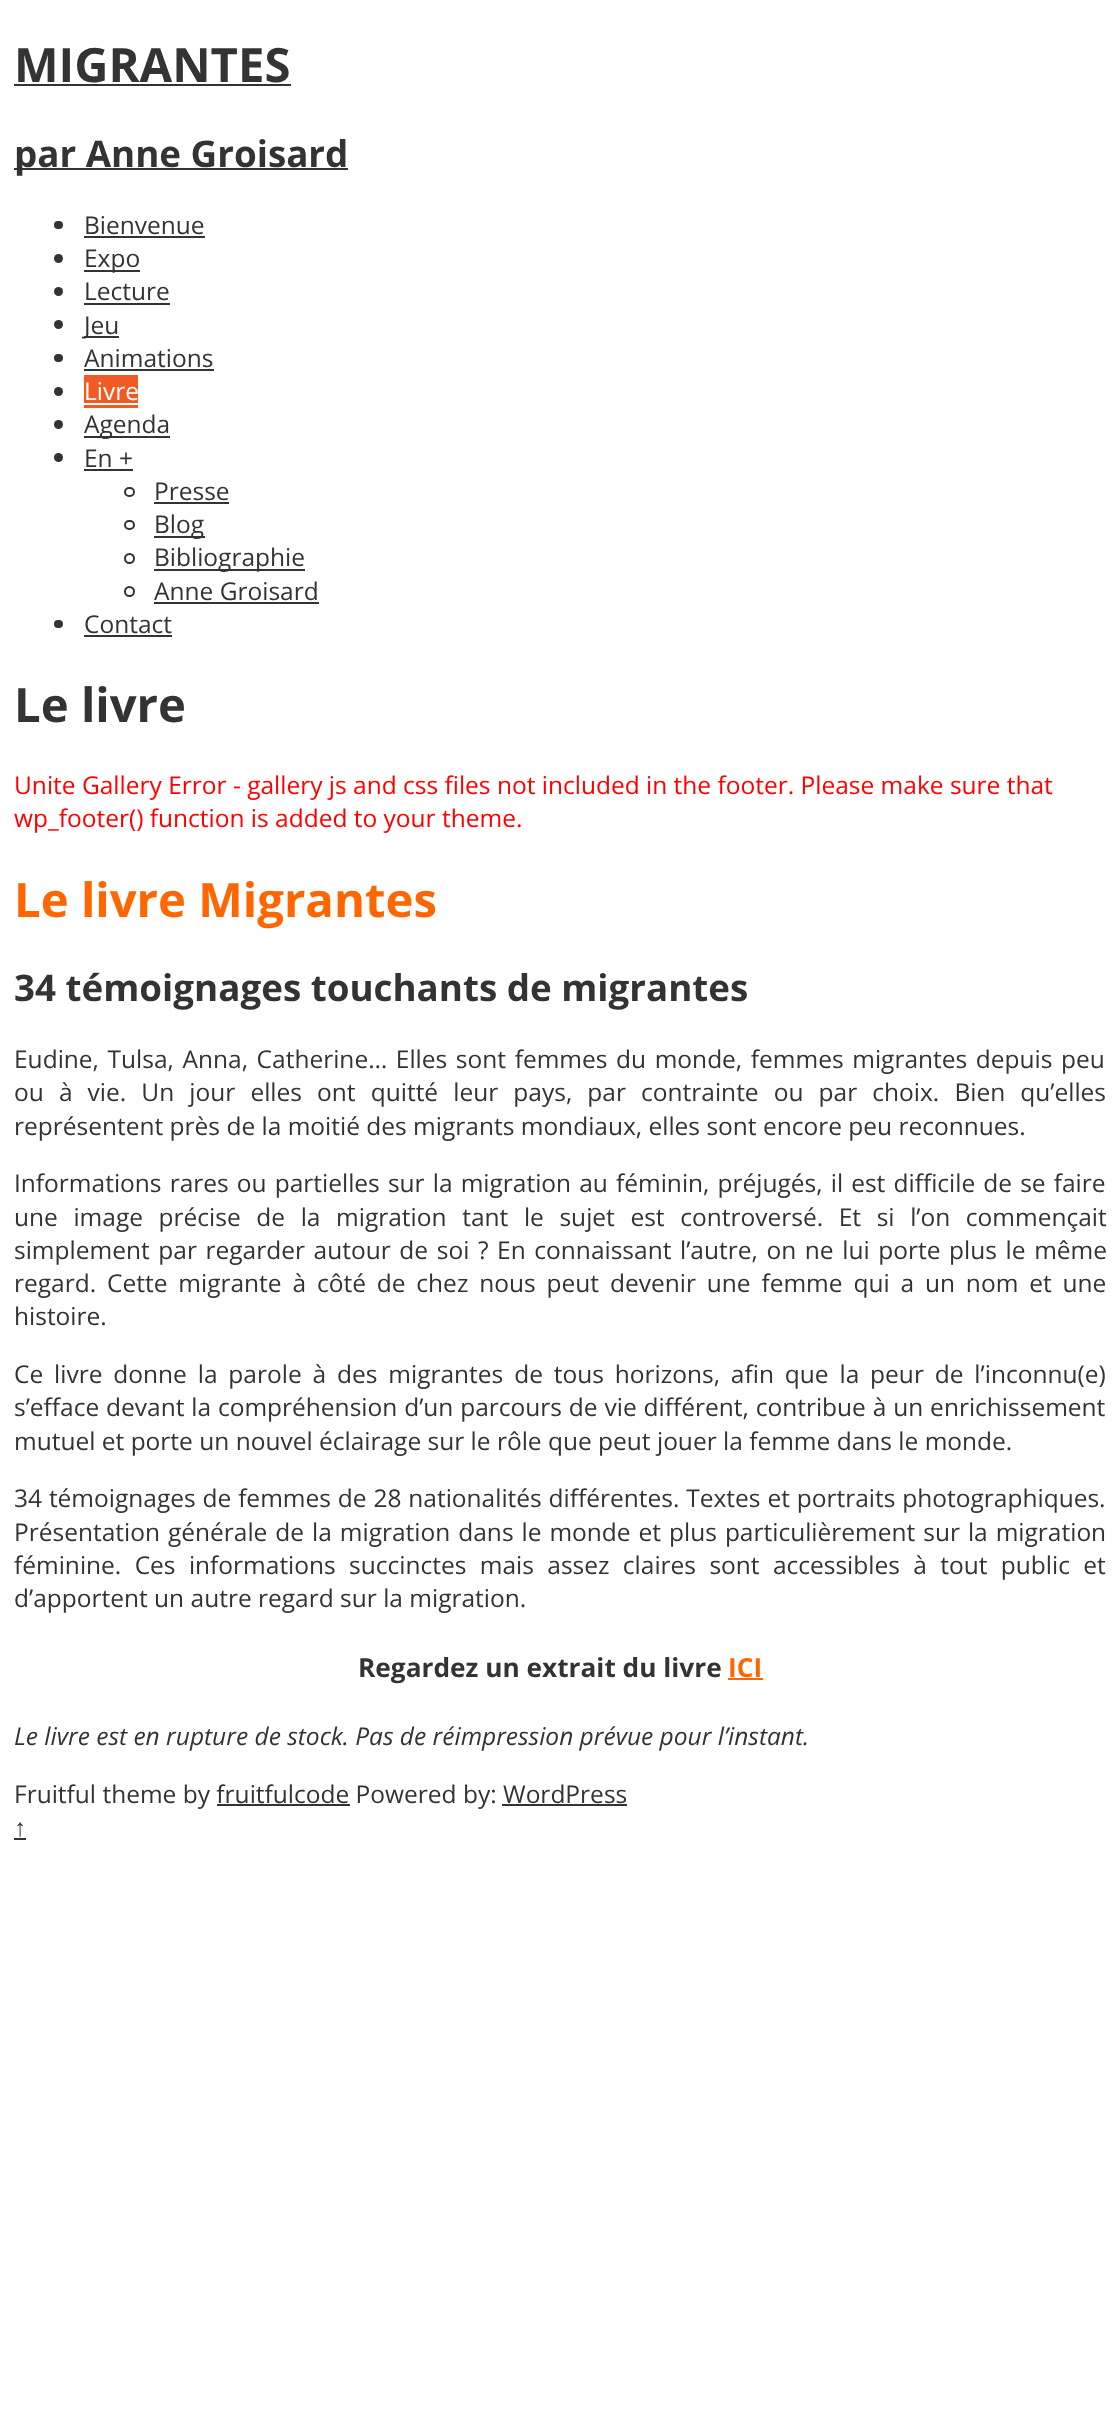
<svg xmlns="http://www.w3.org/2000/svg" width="1119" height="2428">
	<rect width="100%" height="100%" fill="#FFFFFF" />
	<text x="14" y="82" font-family="Open Sans" font-size="47.25" font-weight="700" fill="#333333">MIGRANTES</text>
	<rect x="14" y="84" width="277" height="2" fill="#333333" />
	<rect x="14" y="168" width="334" height="2" fill="#333333" />
	<text x="14" y="167" font-family="Open Sans" font-size="36.75" font-weight="700" fill="#333333">par Anne Groisard</text>
	<rect x="54" y="221" width="9" height="8" rx="4" fill="#333333" />
	<text x="84" y="234" font-family="Open Sans" font-size="24.5" fill="#333333">Bienvenue</text>
	<rect x="84" y="236" width="121" height="2" fill="#333333" />
	<circle cx="58.5" cy="258.5" r="4.5" fill="#333333" />
	<rect x="84" y="270" width="56" height="2" fill="#333333" />
	<text x="84" y="267" font-family="Open Sans" font-size="24.5" fill="#333333">Expo</text>
	<circle cx="58.5" cy="291.5" r="4.5" fill="#333333" />
	<text x="84" y="300" font-family="Open Sans" font-size="24.5" fill="#333333">Lecture</text>
	<rect x="84" y="303" width="86" height="2" fill="#333333" />
	<circle cx="58.5" cy="324.5" r="4.5" fill="#333333" />
	<rect x="84" y="336" width="35" height="2" fill="#333333" />
	<text x="84" y="334" font-family="Open Sans" font-size="24.5" fill="#333333">Jeu</text>
	<rect x="54" y="354" width="9" height="8" rx="4" fill="#333333" />
	<text x="84" y="367" font-family="Open Sans" font-size="24.5" fill="#333333">Animations</text>
	<rect x="84" y="369" width="130" height="2" fill="#333333" />
	<circle cx="58.5" cy="391.5" r="4.5" fill="#333333" />
	<rect x="84" y="375" width="54" height="33" fill="#F15A23" />
	<text x="84" y="400" font-family="Open Sans" font-size="24.5" fill="#FFFFFF">Livre</text>
	<rect x="84" y="403" width="54" height="2" fill="#FFFFFF" />
	<circle cx="58.5" cy="424.5" r="4.5" fill="#333333" />
	<rect x="84" y="436" width="86" height="2" fill="#333333" />
	<text x="84" y="433" font-family="Open Sans" font-size="24.5" fill="#333333">Agenda</text>
	<circle cx="58.5" cy="457.5" r="4.5" fill="#333333" />
	<text x="84" y="467" font-family="Open Sans" font-size="24.5" fill="#333333">En +</text>
	<rect x="84" y="469" width="49" height="2" fill="#333333" />
	<rect x="125" y="488" width="9" height="8" rx="4" fill="none" stroke="#333333" stroke-width="2" />
	<text x="154" y="500" font-family="Open Sans" font-size="24.5" fill="#333333">Presse</text>
	<rect x="154" y="502" width="75" height="2" fill="#333333" />
	<rect x="125" y="521" width="9" height="8" rx="4" fill="none" stroke="#333333" stroke-width="2" />
	<rect x="154" y="536" width="51" height="2" fill="#333333" />
	<text x="154" y="533" font-family="Open Sans" font-size="24.5" fill="#333333">Blog</text>
	<circle cx="129.5" cy="558.5" r="4.5" fill="none" stroke="#333333" stroke-width="2" />
	<rect x="154" y="569" width="151" height="2" fill="#333333" />
	<text x="154" y="566" font-family="Open Sans" font-size="24.5" fill="#333333">Bibliographie</text>
	<circle cx="129.5" cy="591.5" r="4.5" fill="none" stroke="#333333" stroke-width="2" />
	<text x="154" y="600" font-family="Open Sans" font-size="24.5" fill="#333333">Anne Groisard</text>
	<rect x="154" y="602" width="165" height="2" fill="#333333" />
	<rect x="54" y="620" width="9" height="8" rx="4" fill="#333333" />
	<text x="84" y="633" font-family="Open Sans" font-size="24.5" fill="#333333">Contact</text>
	<rect x="84" y="635" width="88" height="2" fill="#333333" />
	<text x="14" y="722" font-family="Open Sans" font-size="47.25" font-weight="700" fill="#333333">Le livre</text>
	<g font-family="Open Sans" font-size="24.5" fill="#FF0000">
		<text x="14" y="794">Unite Gallery Error - gallery js and css files not included in the footer. Please make sure that</text>
		<text x="14" y="827">wp_footer() function is added to your theme.</text>
	</g>
	<text x="14" y="917" font-family="Open Sans" font-size="47.25" font-weight="700" fill="#FF6600">Le livre Migrantes</text>
	<text x="14" y="1001" font-family="Open Sans" font-size="36.75" font-weight="700" fill="#333333">34 témoignages touchants de migrantes</text>
	<g font-family="Open Sans" font-size="24.5" fill="#333333">
		<text x="14" y="1068" word-spacing="2.25">Eudine, Tulsa, Anna, Catherine… Elles sont femmes du monde, femmes migrantes depuis peu</text>
		<text x="14" y="1101" word-spacing="8.75">ou à vie. Un jour elles ont quitté leur pays, par contrainte ou par choix. Bien qu’elles</text>
		<text x="14" y="1135">représentent près de la moitié des migrants mondiaux, elles sont encore peu reconnues.</text>
		<text x="14" y="1192" word-spacing="1.75">Informations rares ou partielles sur la migration au féminin, préjugés, il est difficile de se faire</text>
		<text x="14" y="1226" word-spacing="9.25">une image précise de la migration tant le sujet est controversé. Et si l’on commençait</text>
		<text x="14" y="1259" word-spacing="2.25">simplement par regarder autour de soi ? En connaissant l’autre, on ne lui porte plus le même</text>
		<text x="14" y="1292" word-spacing="4.5">regard. Cette migrante à côté de chez nous peut devenir une femme qui a un nom et une</text>
		<text x="14" y="1325">histoire.</text>
		<text x="14" y="1383" word-spacing="4.5">Ce livre donne la parole à des migrantes de tous horizons, afin que la peur de l’inconnu(e)</text>
		<text x="14" y="1416" word-spacing="0.5">s’efface devant la compréhension d’un parcours de vie différent, contribue à un enrichissement</text>
		<text x="14" y="1450">mutuel et porte un nouvel éclairage sur le rôle que peut jouer la femme dans le monde.</text>
		<text x="14" y="1507" word-spacing="0.5">34 témoignages de femmes de 28 nationalités différentes. Textes et portraits photographiques.</text>
		<text x="14" y="1541" word-spacing="1.6">Présentation générale de la migration dans le monde et plus particulièrement sur la migration</text>
		<text x="14" y="1574" word-spacing="7">féminine. Ces informations succinctes mais assez claires sont accessibles à tout public et</text>
		<text x="14" y="1607">d’apportent un autre regard sur la migration.</text>
	</g>
	<text x="358" y="1677" font-family="Open Sans" font-size="26.25" font-weight="700" fill="#333333">Regardez un extrait du livre</text>
	<text x="728" y="1677" font-family="Open Sans" font-size="26.25" font-weight="700" fill="#FF6600">ICI</text>
	<rect x="728" y="1678" width="35" height="2" fill="#FF6600" />
	<text x="14" y="1745" font-family="Open Sans" font-size="24.5" font-style="italic" fill="#333333">Le livre est en rupture de stock. Pas de réimpression prévue pour l’instant.</text>
	<text x="14" y="1803" font-family="Open Sans" font-size="24.5" fill="#333333">Fruitful theme by fruitfulcode Powered by: WordPress</text>
	<rect x="217" y="1804" width="133" height="2" fill="#333333" />
	<rect x="502" y="1804" width="125" height="2" fill="#333333" />
	<text x="14" y="1836" font-family="Liberation Sans" font-size="24.5" fill="#333333">↑</text>
	<rect x="14" y="1838" width="12" height="2" fill="#333333" />
</svg>
